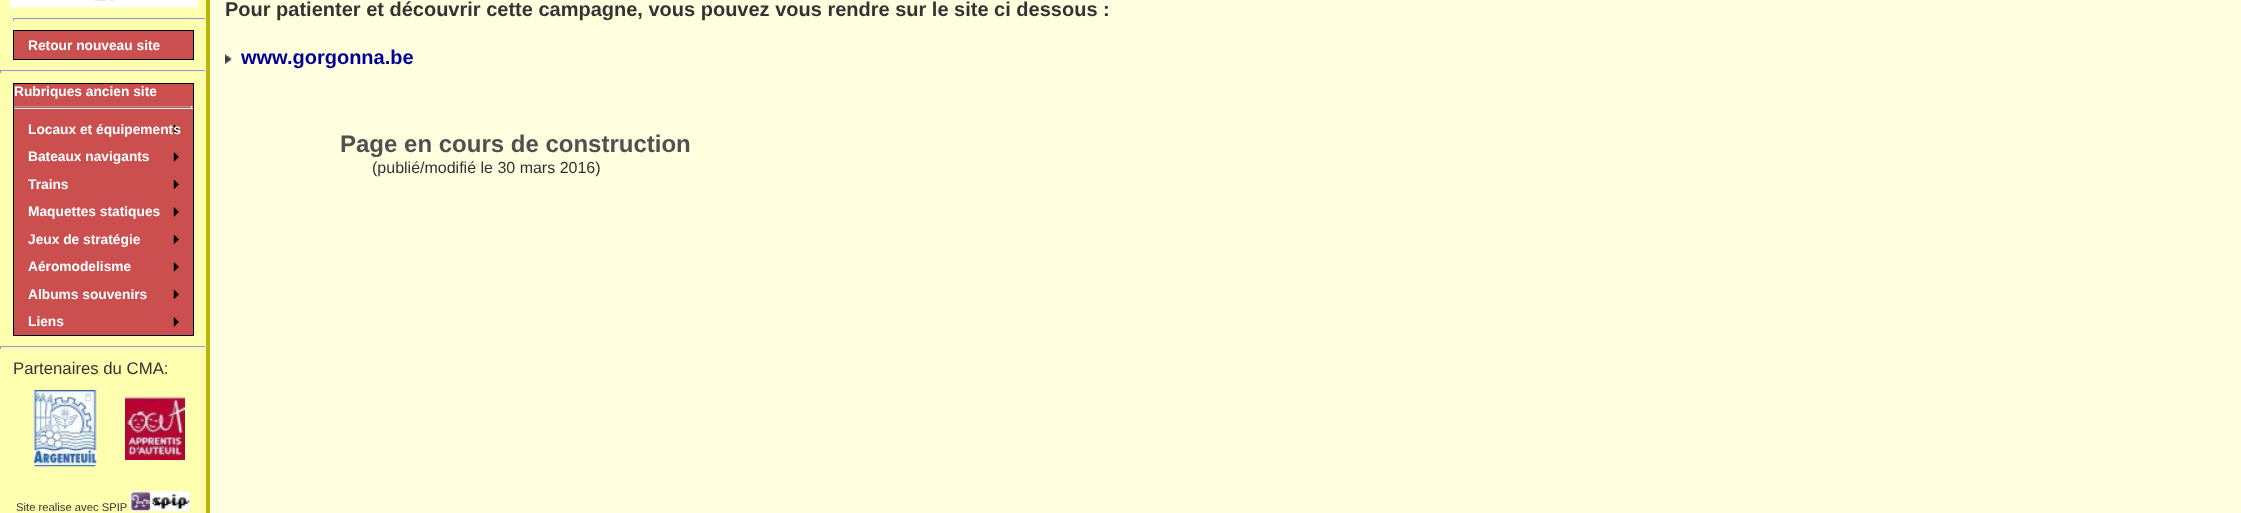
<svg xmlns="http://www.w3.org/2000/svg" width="2241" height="513">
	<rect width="100%" height="100%" fill="#FFFFE0" />
	<rect x="0" y="0" width="206" height="513" fill="#FFFFB0" />
	<rect x="206" y="0" width="4" height="513" fill="#BAB707" />
	<image x="10" y="0" width="188" height="8" href="assets/img1.png" />
	<rect x="13" y="18" width="193" height="1" fill="#9F9F9F" />
	<rect x="205" y="18" width="1" height="3" fill="#EEEEEE" />
	<rect x="13" y="19" width="193" height="1" fill="#EEEEEE" />
	<rect x="13" y="18" width="1" height="3" fill="#9F9F9F" />
	<rect x="13.5" y="30.5" width="180" height="29" fill="#CC4F4F" stroke="#000000" />
	<text x="28" y="50" font-family="Liberation Sans" font-size="13.75" font-weight="700" fill="#FFFFFF">Retour nouveau site</text>
	<rect x="0" y="70" width="206" height="1" fill="#9F9F9F" />
	<rect x="205" y="70" width="1" height="3" fill="#EEEEEE" />
	<rect x="0" y="71" width="206" height="1" fill="#EEEEEE" />
	<rect x="0" y="70" width="1" height="3" fill="#9F9F9F" />
	<rect x="13.5" y="83.5" width="180" height="252" fill="#CC4F4F" stroke="#000000" />
	<text x="14" y="96" font-family="Liberation Sans" font-size="13.75" font-weight="700" fill="#FFFFFF">Rubriques ancien site</text>
	<rect x="14" y="106" width="179" height="1" fill="#9F9F9F" />
	<rect x="191" y="106" width="1" height="3" fill="#EEEEEE" />
	<rect x="14" y="108" width="179" height="1" fill="#EEEEEE" />
	<rect x="14" y="106" width="1" height="3" fill="#9F9F9F" />
	<image x="173" y="124" width="6" height="10" href="assets/img2.png" />
	<text x="28" y="134" font-family="Liberation Sans" font-size="13.75" font-weight="700" fill="#FFFFFF">Locaux et équipements</text>
	<image x="173" y="152" width="6" height="10" href="assets/img3.png" />
	<text x="28" y="161" font-family="Liberation Sans" font-size="13.75" font-weight="700" fill="#FFFFFF">Bateaux navigants</text>
	<image x="173" y="179" width="6" height="10" href="assets/img2.png" />
	<text x="28" y="189" font-family="Liberation Sans" font-size="13.75" font-weight="700" fill="#FFFFFF">Trains</text>
	<image x="173" y="207" width="6" height="10" href="assets/img3.png" />
	<text x="28" y="216" font-family="Liberation Sans" font-size="13.75" font-weight="700" fill="#FFFFFF">Maquettes statiques</text>
	<image x="173" y="234" width="6" height="10" href="assets/img2.png" />
	<text x="28" y="244" font-family="Liberation Sans" font-size="13.75" font-weight="700" fill="#FFFFFF">Jeux de stratégie</text>
	<image x="173" y="262" width="6" height="10" href="assets/img3.png" />
	<text x="28" y="271" font-family="Liberation Sans" font-size="13.75" font-weight="700" fill="#FFFFFF">Aéromodelisme</text>
	<image x="173" y="289" width="6" height="10" href="assets/img2.png" />
	<text x="28" y="299" font-family="Liberation Sans" font-size="13.75" font-weight="700" fill="#FFFFFF">Albums souvenirs</text>
	<image x="173" y="317" width="6" height="10" href="assets/img3.png" />
	<text x="28" y="326" font-family="Liberation Sans" font-size="13.75" font-weight="700" fill="#FFFFFF">Liens</text>
	<rect x="0" y="346" width="206" height="1" fill="#9F9F9F" />
	<rect x="205" y="346" width="1" height="3" fill="#EEEEEE" />
	<rect x="0" y="348" width="206" height="1" fill="#EEEEEE" />
	<rect x="0" y="346" width="1" height="3" fill="#9F9F9F" />
	<text x="13" y="374" font-family="Liberation Sans" font-size="16.75" fill="#333333">Partenaires du CMA:</text>
	<image x="33" y="390" width="64" height="77" href="assets/img4.png" />
	<image x="125" y="397" width="60" height="63" href="assets/img5.png" />
	<text x="16" y="511" font-family="Liberation Sans" font-size="11.25" fill="#333333">Site realise avec SPIP</text>
	<image x="130" y="491" width="60" height="21" href="assets/img6.png" />
	<text x="225" y="16" font-family="Liberation Sans" font-size="20" font-weight="700" fill="#333333">Pour patienter et découvrir cette campagne, vous pouvez vous rendre sur le site ci dessous :</text>
	<image x="225" y="53" width="7" height="11" href="assets/img7.png" />
	<text x="241" y="64" font-family="Liberation Sans" font-size="20" font-weight="700" fill="#000099">www.gorgonna.be</text>
	<text x="340" y="152" font-family="Liberation Sans" font-size="24" font-weight="700" fill="#505050">Page en cours de construction</text>
	<text x="372" y="173" font-family="Liberation Sans" font-size="16" fill="#333333">(publié/modifié le 30 mars 2016)</text>
</svg>
